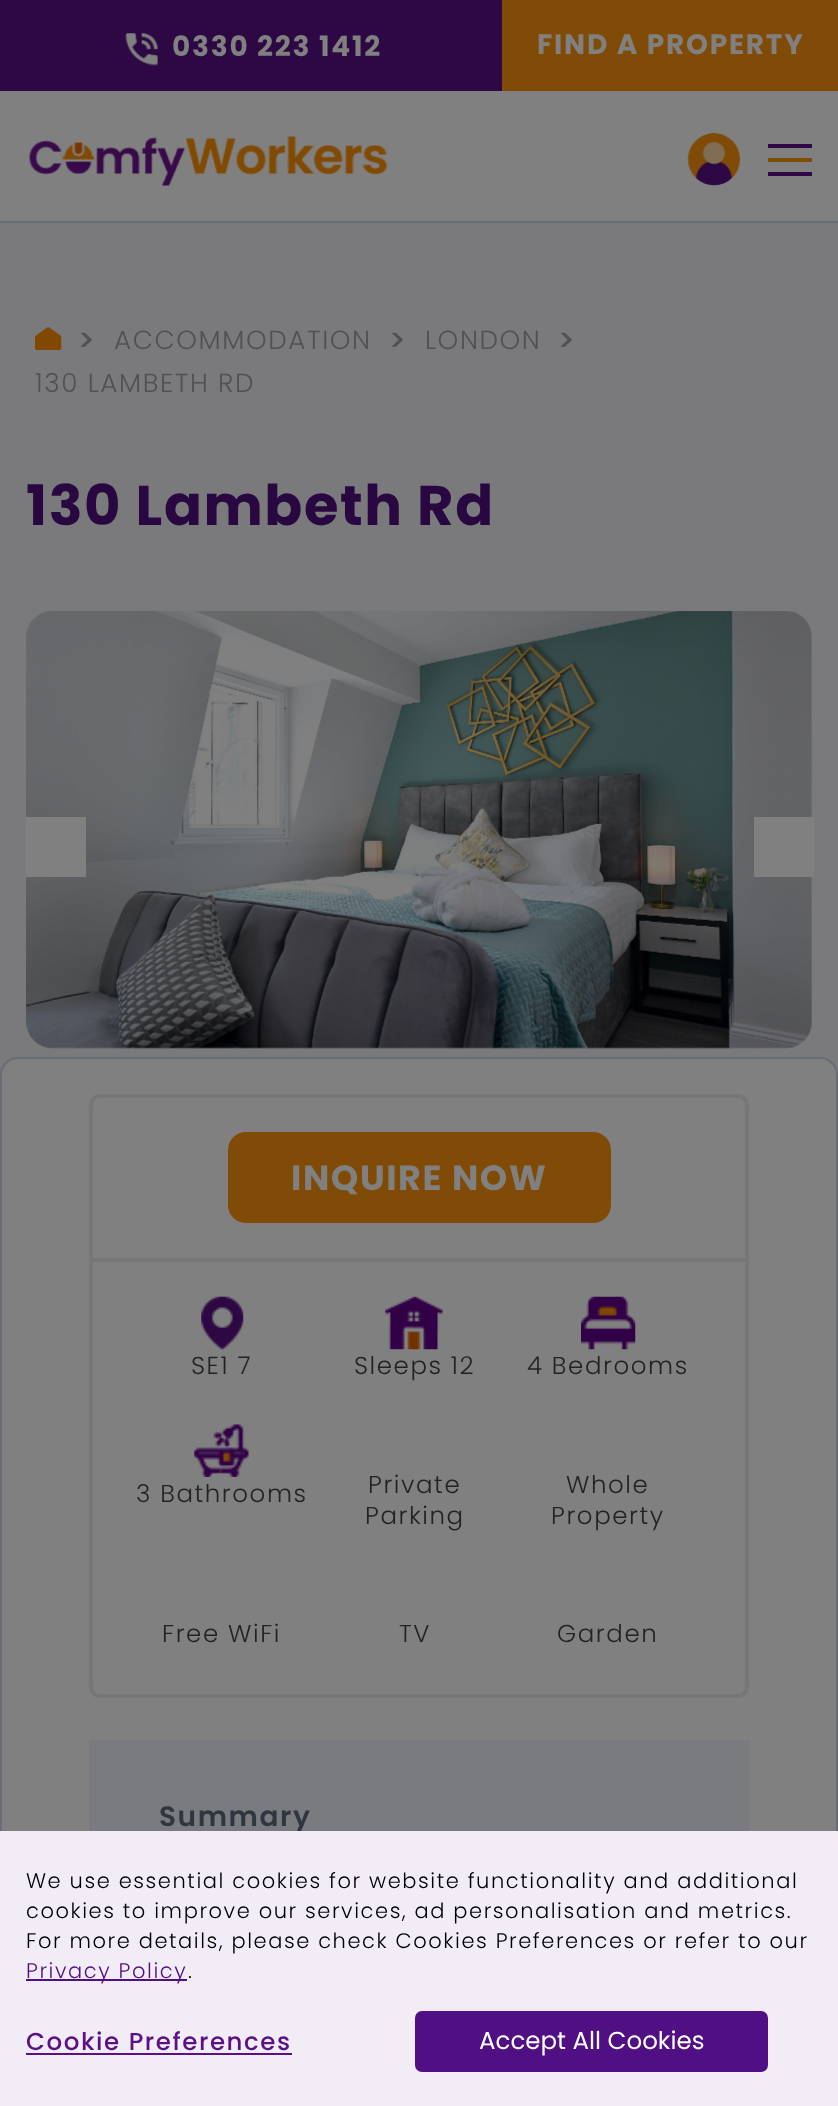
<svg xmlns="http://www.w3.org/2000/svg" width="838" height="2106">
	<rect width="100%" height="100%" fill="#7A7A7C" />
	<rect x="0" y="0" width="502" height="91" fill="#2D0844" />
	<image x="125" y="33" width="33" height="33" href="assets/img1.png" />
	<text x="172" y="56" font-family="Poppins" font-size="28" font-weight="700" letter-spacing="1.75" fill="#808080">0330 223 1412</text>
	<rect x="502" y="0" width="336" height="91" fill="#804B06" />
	<text x="537" y="54" font-family="Poppins" font-size="28" font-weight="700" letter-spacing="1.75" fill="#808080">FIND A PROPERTY</text>
	<rect x="0" y="91" width="838" height="130" fill="#808080" />
	<rect x="0" y="221" width="838" height="2" fill="#686C74" />
	<image x="29" y="136" width="359" height="50" href="assets/img2.png" />
	<image x="687" y="133" width="53" height="53" href="assets/img3.png" />
	<rect x="768" y="158" width="44" height="4" fill="#804B06" />
	<rect x="768" y="144" width="44" height="4" fill="#2D0844" />
	<rect x="768" y="172" width="44" height="4" fill="#2D0844" />
	<image x="35" y="327" width="27" height="23" href="assets/img4.png" />
	<text x="77" y="351" font-family="Poppins" font-size="31" font-weight="500" letter-spacing="1.57" fill="#505155">&gt;</text>
	<text x="114" y="349" font-family="Poppins" font-size="26.25" font-weight="300" letter-spacing="1.57" fill="#505155">ACCOMMODATION</text>
	<text x="388" y="351" font-family="Poppins" font-size="31" font-weight="500" letter-spacing="1.57" fill="#505155">&gt;</text>
	<text x="425" y="349" font-family="Poppins" font-size="26.25" font-weight="300" letter-spacing="1.57" fill="#505155">LONDON</text>
	<text x="557" y="351" font-family="Poppins" font-size="31" font-weight="500" letter-spacing="1.57" fill="#505155">&gt;</text>
	<text x="35" y="392" font-family="Poppins" font-size="26.25" font-weight="300" letter-spacing="1.57" fill="#505155">130 LAMBETH RD</text>
	<text x="26" y="525" font-family="Poppins" font-size="56" font-weight="700" letter-spacing="1.57" fill="#290842">130 Lambeth Rd</text>
	<image x="26" y="611" width="786" height="438" href="assets/img5.png" />
	<rect x="26" y="817" width="60" height="60" fill="#808080" />
	<rect x="754" y="817" width="60" height="60" fill="#808080" />
	<rect x="1" y="1058" width="836" height="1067" rx="17" fill="#808080" stroke="#686C74" stroke-width="2" />
	<rect x="91" y="1096" width="656" height="600" rx="9" fill="none" stroke="#777777" stroke-width="4" />
	<rect x="228" y="1132" width="383" height="91" rx="18" fill="#804B06" />
	<text x="291" y="1190" font-family="Poppins" font-size="35" font-weight="700" letter-spacing="1.57" fill="#808080">INQUIRE NOW</text>
	<rect x="93" y="1258" width="653" height="4" fill="#777777" />
	<image x="201" y="1296" width="43" height="54" href="assets/img6.png" />
	<text x="191" y="1374" font-family="Poppins" font-size="24.5" font-weight="300" letter-spacing="1.57" fill="#222222">SE1 7</text>
	<image x="385" y="1296" width="58" height="54" href="assets/img7.png" />
	<text x="354" y="1374" font-family="Poppins" font-size="24.5" font-weight="300" letter-spacing="1.57" fill="#222222">Sleeps 12</text>
	<image x="581" y="1296" width="55" height="54" href="assets/img8.png" />
	<text x="527" y="1374" font-family="Poppins" font-size="24.5" font-weight="300" letter-spacing="1.57" fill="#222222">4 Bedrooms</text>
	<image x="194" y="1424" width="55" height="53" href="assets/img9.png" />
	<g font-family="Poppins" font-size="24.5" font-weight="300" letter-spacing="1.57" fill="#222222">
		<text x="136" y="1502">3 Bathrooms</text>
		<text x="368" y="1493">Private</text>
		<text x="365" y="1524">Parking</text>
		<text x="566" y="1493">Whole</text>
		<text x="551" y="1524">Property</text>
		<text x="162" y="1642">Free WiFi</text>
		<text x="399" y="1642">TV</text>
		<text x="557" y="1642">Garden</text>
	</g>
	<rect x="89" y="1740" width="660" height="91" fill="#7A7B7E" />
	<text x="159" y="1826" font-family="Poppins" font-size="28" font-weight="600" letter-spacing="1.57" fill="#30363F">Summary</text>
	<rect x="0" y="1831" width="838" height="275" fill="#F2ECF7" />
	<g font-family="Poppins" font-size="21" font-weight="300" letter-spacing="1.57" fill="#000000">
		<text x="26" y="1888">We use essential cookies for website functionality and additional</text>
		<text x="26" y="1918">cookies to improve our services, ad personalisation and metrics.</text>
		<text x="26" y="1948">For more details, please check Cookies Preferences or refer to our</text>
	</g>
	<rect x="26" y="1979" width="161" height="2" fill="#510F84" />
	<text x="26" y="1978" font-family="Poppins" font-size="21" font-weight="300" letter-spacing="1.57" fill="#510F84">Privacy Policy</text>
	<text x="188" y="1978" font-family="Poppins" font-size="21" font-weight="300" letter-spacing="1.57" fill="#000000">.</text>
	<text x="26" y="2050" font-family="Poppins" font-size="24.5" font-weight="500" letter-spacing="1.57" fill="#5A1086">Cookie Preferences</text>
	<rect x="26" y="2053" width="266" height="2" fill="#5A1086" />
	<rect x="416" y="2012" width="351" height="59" rx="6" fill="#510F84" stroke="#510F84" stroke-width="2" />
	<text x="479" y="2049" font-family="Poppins" font-size="24.5" fill="#FFFFFF">Accept All Cookies</text>
</svg>
